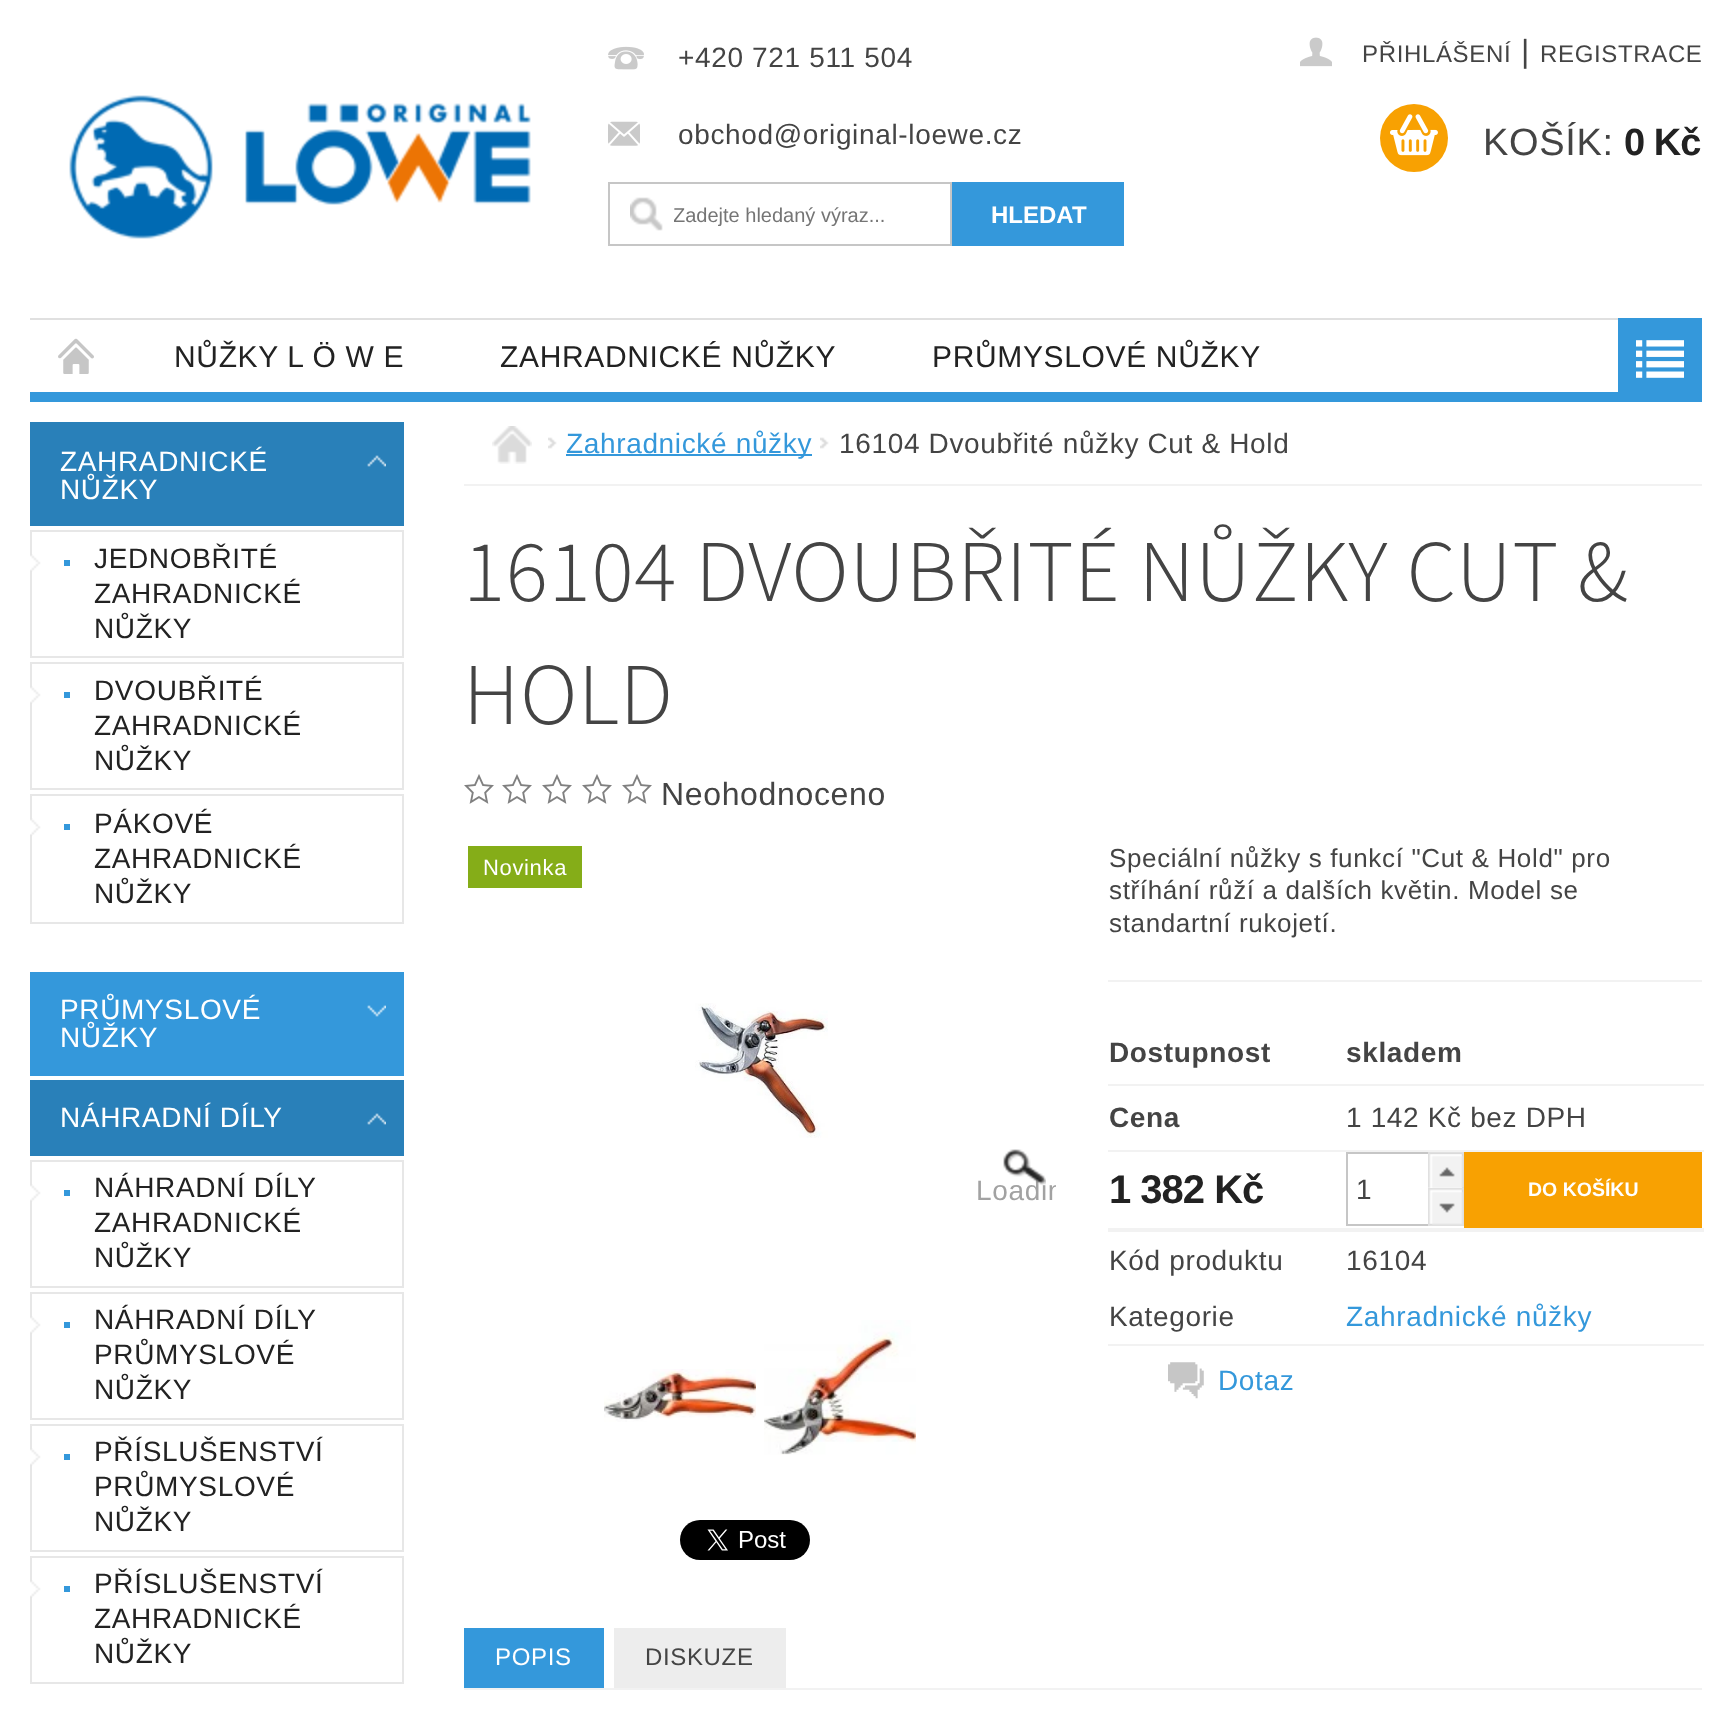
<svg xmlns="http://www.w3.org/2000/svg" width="1732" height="1718">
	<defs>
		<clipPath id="clip1"><rect x="674" y="204" width="252" height="22" /></clipPath>
		<clipPath id="clip2"><rect x="464" y="842" width="592" height="446" /></clipPath>
	</defs>
	<rect width="100%" height="100%" fill="#FFFFFF" />
	<rect x="30" y="392" width="1588" height="10" fill="#3498DB" />
	<image x="69" y="95" width="462" height="144" href="assets/img1.png" />
	<image x="608" y="46" width="36" height="24" href="assets/img2.png" />
	<text x="678" y="67" font-family="Liberation Sans" font-size="28" letter-spacing="0.65" fill="#444444">+420 721 511 504</text>
	<image x="608" y="121" width="32" height="25" href="assets/img3.png" />
	<text x="678" y="144" font-family="Liberation Sans" font-size="28" letter-spacing="0.65" fill="#444444">obchod@original-loewe.cz</text>
	<image x="630" y="197" width="33" height="34" href="assets/img4.png" />
	<rect x="609" y="183" width="342" height="62" fill="none" stroke="#C6C6C6" stroke-width="2" />
	<g clip-path="url(#clip1)">
		<text x="673" y="222" font-family="Liberation Sans" font-size="20" fill="#757575">Zadejte hledaný výraz...</text>
	</g>
	<rect x="952" y="182" width="172" height="64" fill="#3498DB" />
	<text x="991" y="223" font-family="Liberation Sans" font-size="24" font-weight="700" fill="#FFFFFF">HLEDAT</text>
	<image x="1300" y="37" width="32" height="30" href="assets/img5.png" />
	<text x="1362" y="62" font-family="Liberation Sans" font-size="24" letter-spacing="0.65" fill="#444444">PŘIHLÁŠENÍ</text>
	<text x="1521" y="62" font-family="Liberation Sans" font-size="32" letter-spacing="0.65" fill="#444444">|</text>
	<text x="1540" y="62" font-family="Liberation Sans" font-size="24" letter-spacing="0.65" fill="#444444">REGISTRACE</text>
	<circle cx="1414" cy="138" r="34" fill="#F8A102" />
	<image x="1390" y="114" width="48" height="42" href="assets/img6.png" />
	<text x="1483" y="155" font-family="Liberation Sans" font-size="38" letter-spacing="0.65" fill="#444444">KOŠÍK:</text>
	<text x="1624" y="155" font-family="Liberation Sans" font-size="38" font-weight="700" letter-spacing="-1" fill="#222222">0 Kč</text>
	<rect x="30" y="318" width="1588" height="2" fill="#E0E0E0" />
	<image x="58" y="338" width="36" height="36" href="assets/img7.png" />
	<g font-family="Liberation Sans" font-size="30" letter-spacing="0.65" fill="#222222">
		<text x="174" y="367">NŮŽKY L Ö W E</text>
		<text x="500" y="367">ZAHRADNICKÉ NŮŽKY</text>
		<text x="932" y="367">PRŮMYSLOVÉ NŮŽKY</text>
	</g>
	<rect x="1618" y="318" width="84" height="84" fill="#3498DB" />
	<image x="1636" y="340" width="48" height="38" href="assets/img8.png" />
	<rect x="30" y="422" width="374" height="104" fill="#2980B9" />
	<image x="367" y="455" width="19" height="12" href="assets/img9.png" />
	<g font-family="Liberation Sans" font-size="28" letter-spacing="0.65" fill="#FFFFFF">
		<text x="60" y="471">ZAHRADNICKÉ</text>
		<text x="60" y="499">NŮŽKY</text>
	</g>
	<rect x="31" y="531" width="372" height="126" fill="none" stroke="#E7E7E7" stroke-width="2" />
	<image x="30" y="554" width="11" height="18" href="assets/img10.png" />
	<rect x="64" y="560" width="6" height="6" fill="#3498DB" />
	<g font-family="Liberation Sans" font-size="28" letter-spacing="0.65" fill="#222222">
		<text x="94" y="568">JEDNOBŘITÉ</text>
		<text x="94" y="603">ZAHRADNICKÉ</text>
		<text x="94" y="638">NŮŽKY</text>
	</g>
	<rect x="31" y="663" width="372" height="126" fill="none" stroke="#E7E7E7" stroke-width="2" />
	<image x="30" y="686" width="11" height="18" href="assets/img10.png" />
	<rect x="64" y="692" width="6" height="6" fill="#3498DB" />
	<g font-family="Liberation Sans" font-size="28" letter-spacing="0.65" fill="#222222">
		<text x="94" y="700">DVOUBŘITÉ</text>
		<text x="94" y="735">ZAHRADNICKÉ</text>
		<text x="94" y="770">NŮŽKY</text>
	</g>
	<rect x="31" y="795" width="372" height="128" fill="none" stroke="#E7E7E7" stroke-width="2" />
	<image x="30" y="818" width="11" height="18" href="assets/img11.png" />
	<rect x="64" y="824" width="6" height="6" fill="#3498DB" />
	<g font-family="Liberation Sans" font-size="28" letter-spacing="0.65" fill="#222222">
		<text x="94" y="833">PÁKOVÉ</text>
		<text x="94" y="868">ZAHRADNICKÉ</text>
		<text x="94" y="903">NŮŽKY</text>
	</g>
	<rect x="30" y="972" width="374" height="104" fill="#3498DB" />
	<image x="367" y="1005" width="19" height="12" href="assets/img12.png" />
	<g font-family="Liberation Sans" font-size="28" letter-spacing="0.65" fill="#FFFFFF">
		<text x="60" y="1019">PRŮMYSLOVÉ</text>
		<text x="60" y="1047">NŮŽKY</text>
	</g>
	<rect x="30" y="1080" width="374" height="76" fill="#2980B9" />
	<image x="367" y="1113" width="19" height="12" href="assets/img9.png" />
	<text x="60" y="1127" font-family="Liberation Sans" font-size="28" letter-spacing="0.65" fill="#FFFFFF">NÁHRADNÍ DÍLY</text>
	<rect x="31" y="1161" width="372" height="126" fill="none" stroke="#E7E7E7" stroke-width="2" />
	<image x="30" y="1184" width="11" height="18" href="assets/img10.png" />
	<rect x="64" y="1190" width="6" height="6" fill="#3498DB" />
	<g font-family="Liberation Sans" font-size="28" letter-spacing="0.65" fill="#222222">
		<text x="94" y="1197">NÁHRADNÍ DÍLY</text>
		<text x="94" y="1232">ZAHRADNICKÉ</text>
		<text x="94" y="1267">NŮŽKY</text>
	</g>
	<rect x="31" y="1293" width="372" height="126" fill="none" stroke="#E7E7E7" stroke-width="2" />
	<image x="30" y="1316" width="11" height="18" href="assets/img10.png" />
	<rect x="64" y="1322" width="6" height="6" fill="#3498DB" />
	<g font-family="Liberation Sans" font-size="28" letter-spacing="0.65" fill="#222222">
		<text x="94" y="1329">NÁHRADNÍ DÍLY</text>
		<text x="94" y="1364">PRŮMYSLOVÉ</text>
		<text x="94" y="1399">NŮŽKY</text>
	</g>
	<rect x="31" y="1425" width="372" height="126" fill="none" stroke="#E7E7E7" stroke-width="2" />
	<image x="30" y="1448" width="11" height="18" href="assets/img10.png" />
	<rect x="64" y="1454" width="6" height="6" fill="#3498DB" />
	<g font-family="Liberation Sans" font-size="28" letter-spacing="0.65" fill="#222222">
		<text x="94" y="1461">PŘÍSLUŠENSTVÍ</text>
		<text x="94" y="1496">PRŮMYSLOVÉ</text>
		<text x="94" y="1531">NŮŽKY</text>
	</g>
	<rect x="31" y="1557" width="372" height="126" fill="none" stroke="#E7E7E7" stroke-width="2" />
	<image x="30" y="1580" width="11" height="18" href="assets/img10.png" />
	<rect x="64" y="1586" width="6" height="6" fill="#3498DB" />
	<g font-family="Liberation Sans" font-size="28" letter-spacing="0.65" fill="#222222">
		<text x="94" y="1593">PŘÍSLUŠENSTVÍ</text>
		<text x="94" y="1628">ZAHRADNICKÉ</text>
		<text x="94" y="1663">NŮŽKY</text>
	</g>
	<rect x="464" y="484" width="1238" height="2" fill="#F2F2F2" />
	<image x="492" y="426" width="40" height="38" href="assets/img13.png" />
	<image x="548" y="437" width="9" height="12" href="assets/img14.png" />
	<rect x="566" y="454" width="246" height="2" fill="#3498DB" />
	<text x="566" y="453" font-family="Liberation Sans" font-size="28" letter-spacing="0.65" fill="#3498DB">Zahradnické nůžky</text>
	<image x="820" y="437" width="9" height="12" href="assets/img14.png" />
	<text x="839" y="453" font-family="Liberation Sans" font-size="28" letter-spacing="0.65" fill="#444444">16104 Dvoubřité nůžky Cut &amp; Hold</text>
	<g font-family="'Source Sans 3'" font-size="88" font-weight="300" letter-spacing="0.65" fill="#444444">
		<text x="463" y="601">16104 DVOUBŘITÉ NŮŽKY CUT &amp;</text>
		<text x="463" y="724">HOLD</text>
	</g>
	<image x="464" y="774" width="30" height="30" href="assets/img15.png" />
	<image x="502" y="774" width="30" height="30" href="assets/img15.png" />
	<image x="542" y="774" width="30" height="30" href="assets/img15.png" />
	<image x="582" y="774" width="30" height="30" href="assets/img15.png" />
	<image x="622" y="774" width="30" height="30" href="assets/img15.png" />
	<text x="661" y="805" font-family="Liberation Sans" font-size="32" letter-spacing="0.65" fill="#444444">Neohodnoceno</text>
	<rect x="468" y="846" width="114" height="42" fill="#85AD18" />
	<text x="483" y="875" font-family="Liberation Sans" font-size="22" letter-spacing="0.65" fill="#FFFFFF">Novinka</text>
	<g clip-path="url(#clip2)">
		<text x="976" y="1200" font-family="Liberation Sans" font-size="28" letter-spacing="0.65" fill="#A2A2A2">Loadin</text>
	</g>
	<image x="1003" y="1149" width="43" height="37" href="assets/img16.png" />
	<image x="695" y="1003" width="133" height="135" href="assets/img17.png" />
	<image x="604" y="1369" width="152" height="53" href="assets/img18.png" />
	<image x="764" y="1320" width="152" height="135" href="assets/img19.png" />
	<image x="680" y="1520" width="130" height="40" href="assets/img20.png" />
	<rect x="1108" y="980" width="594" height="2" fill="#F2F2F2" />
	<g font-family="Liberation Sans" font-size="26" letter-spacing="0.65" fill="#444444">
		<text x="1109" y="867">Speciální nůžky s funkcí "Cut &amp; Hold" pro</text>
		<text x="1109" y="899">stříhání růží a dalších květin. Model se</text>
		<text x="1109" y="932">standartní rukojetí.</text>
	</g>
	<rect x="1108" y="1084" width="596" height="2" fill="#F2F2F2" />
	<g font-family="Liberation Sans" font-size="28" font-weight="700" letter-spacing="0.65" fill="#444444">
		<text x="1109" y="1062">Dostupnost</text>
		<text x="1346" y="1062">skladem</text>
	</g>
	<rect x="1108" y="1150" width="596" height="2" fill="#F2F2F2" />
	<text x="1109" y="1127" font-family="Liberation Sans" font-size="28" font-weight="700" letter-spacing="0.65" fill="#444444">Cena</text>
	<text x="1346" y="1127" font-family="Liberation Sans" font-size="28" letter-spacing="0.65" fill="#444444">1 142 Kč bez DPH</text>
	<rect x="1108" y="1228" width="596" height="4" fill="#F2F2F2" />
	<text x="1109" y="1203" font-family="Liberation Sans" font-size="40" font-weight="700" letter-spacing="-1" fill="#222222">1 382 Kč</text>
	<rect x="1347" y="1153" width="116" height="72" fill="none" stroke="#C6C6C6" stroke-width="2" />
	<text x="1356" y="1199" font-family="Liberation Sans" font-size="28" fill="#444444">1</text>
	<image x="1428" y="1152" width="36" height="36" href="assets/img21.png" />
	<image x="1428" y="1188" width="36" height="38" href="assets/img22.png" />
	<rect x="1464" y="1152" width="238" height="76" fill="#F8A102" />
	<text x="1528" y="1196" font-family="Liberation Sans" font-size="19.5" font-weight="700" fill="#FFFFFF">DO KOŠÍKU</text>
	<g font-family="Liberation Sans" font-size="28" letter-spacing="0.65" fill="#444444">
		<text x="1109" y="1270">Kód produktu</text>
		<text x="1346" y="1270">16104</text>
	</g>
	<rect x="1108" y="1344" width="596" height="2" fill="#F2F2F2" />
	<text x="1109" y="1326" font-family="Liberation Sans" font-size="28" letter-spacing="0.65" fill="#444444">Kategorie</text>
	<text x="1346" y="1326" font-family="Liberation Sans" font-size="28" letter-spacing="0.65" fill="#3498DB">Zahradnické nůžky</text>
	<image x="1168" y="1362" width="36" height="37" href="assets/img23.png" />
	<text x="1218" y="1390" font-family="Liberation Sans" font-size="28" letter-spacing="0.65" fill="#3498DB">Dotaz</text>
	<rect x="464" y="1688" width="1238" height="2" fill="#F2F2F2" />
	<rect x="464" y="1628" width="140" height="60" fill="#3498DB" />
	<text x="495" y="1665" font-family="Liberation Sans" font-size="24" letter-spacing="0.65" fill="#FFFFFF">POPIS</text>
	<rect x="614" y="1628" width="172" height="60" fill="#EDEDED" />
	<text x="645" y="1665" font-family="Liberation Sans" font-size="24" letter-spacing="0.65" fill="#444444">DISKUZE</text>
</svg>
